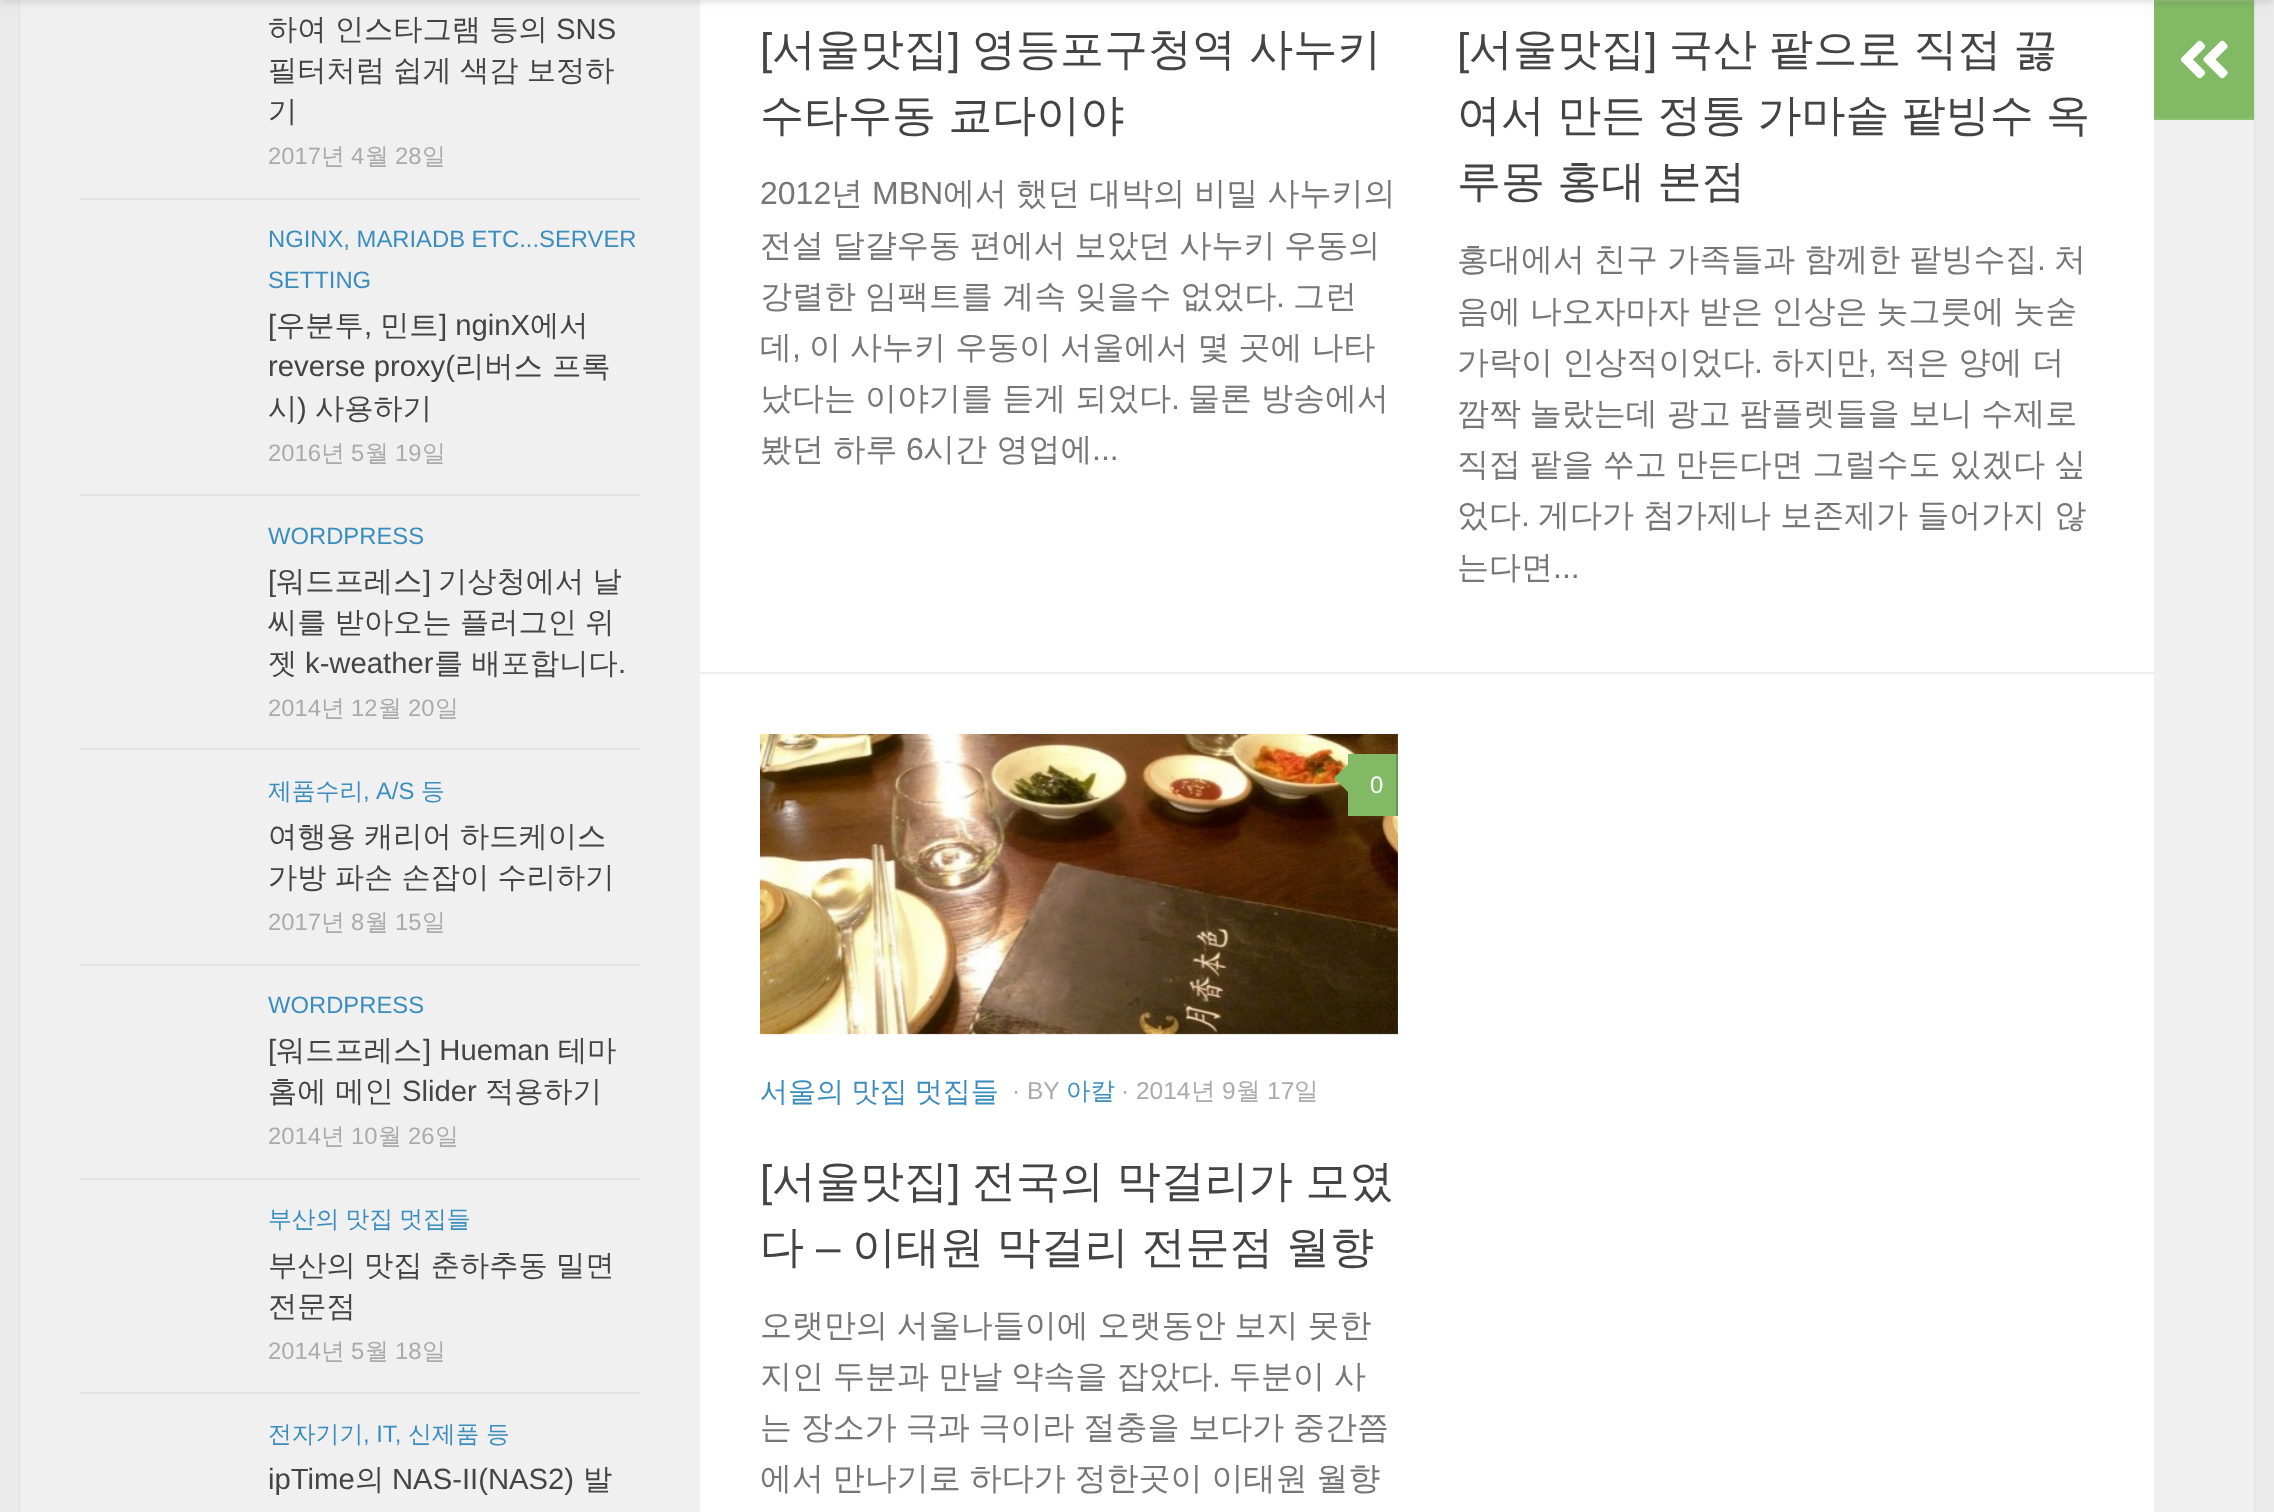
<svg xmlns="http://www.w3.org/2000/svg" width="2274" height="1512">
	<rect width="100%" height="100%" fill="#EAEAEA" />
	<rect x="20" y="-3" width="2234" height="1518" fill="#000000" fill-opacity="0.1" filter="blur(1px)" />
	<rect x="700" y="0" width="1454" height="1512" fill="#FFFFFF" />
	<rect x="20" y="0" width="680" height="1512" fill="#F0F0F0" />
	<rect x="2154" y="0" width="100" height="118" fill="#82B965" />
	<rect x="0" y="0" width="2274" height="2" fill="#FFFFFF" fill-opacity="0.15" />
	<rect x="0" y="-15" width="2274" height="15" fill="#000000" fill-opacity="0.2" filter="blur(5px)" />
	<rect x="80" y="198" width="560" height="2" fill="#E4E4E4" />
	<text x="268" y="39" word-spacing="-0.5" font-family="WenQuanYi Zen Hei" font-size="29.25" font-weight="500" fill="#444444">하여 인스타그램 등의</text>
	<text x="556" y="39" font-family="Liberation Sans" font-size="29.25" fill="#444444">SNS</text>
	<g font-family="WenQuanYi Zen Hei" font-size="29.25" font-weight="500" fill="#444444">
		<text x="268" y="80" word-spacing="-0.5">필터처럼 쉽게 색감 보정하</text>
		<text x="268" y="121">기</text>
	</g>
	<text x="268" y="164" font-family="Liberation Sans" font-size="23.8" fill="#AAAAAA">2017</text>
	<text x="321" y="164" font-family="WenQuanYi Zen Hei" font-size="23.8" font-weight="500" fill="#AAAAAA">년</text>
	<text x="351" y="164" font-family="Liberation Sans" font-size="23.8" fill="#AAAAAA">4</text>
	<text x="365" y="164" font-family="WenQuanYi Zen Hei" font-size="23.8" font-weight="500" fill="#AAAAAA">월</text>
	<text x="395" y="164" font-family="Liberation Sans" font-size="23.8" fill="#AAAAAA">28</text>
	<text x="422" y="164" font-family="WenQuanYi Zen Hei" font-size="23.8" font-weight="500" fill="#AAAAAA">일</text>
	<rect x="80" y="494" width="560" height="2" fill="#E4E4E4" />
	<g font-family="Liberation Sans" font-size="23.8" fill="#3B8DBD">
		<text x="268" y="247">NGINX, MARIADB ETC...SERVER</text>
		<text x="268" y="288">SETTING</text>
	</g>
	<text x="268" y="335" font-family="Liberation Sans" font-size="29.25" fill="#444444">[</text>
	<text x="276" y="335" font-family="WenQuanYi Zen Hei" font-size="29.25" font-weight="500" fill="#444444">우분투</text>
	<text x="364" y="335" font-family="Liberation Sans" font-size="29.25" fill="#444444">,</text>
	<text x="380" y="335" font-family="WenQuanYi Zen Hei" font-size="29.25" font-weight="500" fill="#444444">민트</text>
	<text x="439" y="335" font-family="Liberation Sans" font-size="29.25" fill="#444444">] nginX</text>
	<text x="530" y="335" font-family="WenQuanYi Zen Hei" font-size="29.25" font-weight="500" fill="#444444">에서</text>
	<text x="268" y="376" font-family="Liberation Sans" font-size="29.25" fill="#444444">reverse proxy(</text>
	<g font-family="WenQuanYi Zen Hei" font-size="29.25" font-weight="500" fill="#444444">
		<text x="455" y="376">리버스</text>
		<text x="552" y="376">프록</text>
		<text x="268" y="418">시</text>
	</g>
	<text x="297" y="418" font-family="Liberation Sans" font-size="29.25" fill="#444444">)</text>
	<text x="315" y="418" font-family="WenQuanYi Zen Hei" font-size="29.25" font-weight="500" fill="#444444">사용하기</text>
	<text x="268" y="461" font-family="Liberation Sans" font-size="23.8" fill="#AAAAAA">2016</text>
	<text x="321" y="461" font-family="WenQuanYi Zen Hei" font-size="23.8" font-weight="500" fill="#AAAAAA">년</text>
	<text x="351" y="461" font-family="Liberation Sans" font-size="23.8" fill="#AAAAAA">5</text>
	<text x="365" y="461" font-family="WenQuanYi Zen Hei" font-size="23.8" font-weight="500" fill="#AAAAAA">월</text>
	<text x="395" y="461" font-family="Liberation Sans" font-size="23.8" fill="#AAAAAA">19</text>
	<text x="422" y="461" font-family="WenQuanYi Zen Hei" font-size="23.8" font-weight="500" fill="#AAAAAA">일</text>
	<rect x="80" y="748" width="560" height="2" fill="#E4E4E4" />
	<text x="268" y="544" font-family="Liberation Sans" font-size="23.8" fill="#3B8DBD">WORDPRESS</text>
	<text x="268" y="591" font-family="Liberation Sans" font-size="29.25" fill="#444444">[</text>
	<text x="276" y="591" font-family="WenQuanYi Zen Hei" font-size="29.25" font-weight="500" fill="#444444">워드프레스</text>
	<text x="423" y="591" font-family="Liberation Sans" font-size="29.25" fill="#444444">]</text>
	<g font-family="WenQuanYi Zen Hei" font-size="29.25" font-weight="500" fill="#444444">
		<text x="438" y="591" word-spacing="-0.5">기상청에서 날</text>
		<text x="268" y="632" word-spacing="-0.5">씨를 받아오는 플러그인 위</text>
		<text x="268" y="673">젯</text>
	</g>
	<text x="305" y="673" font-family="Liberation Sans" font-size="29.25" fill="#444444">k-weather</text>
	<text x="434" y="673" word-spacing="-0.5" font-family="WenQuanYi Zen Hei" font-size="29.25" font-weight="500" fill="#444444">를 배포합니다</text>
	<text x="618" y="673" font-family="Liberation Sans" font-size="29.25" fill="#444444">.</text>
	<text x="268" y="716" font-family="Liberation Sans" font-size="23.8" fill="#AAAAAA">2014</text>
	<text x="321" y="716" font-family="WenQuanYi Zen Hei" font-size="23.8" font-weight="500" fill="#AAAAAA">년</text>
	<text x="351" y="716" font-family="Liberation Sans" font-size="23.8" fill="#AAAAAA">12</text>
	<text x="378" y="716" font-family="WenQuanYi Zen Hei" font-size="23.8" font-weight="500" fill="#AAAAAA">월</text>
	<text x="408" y="716" font-family="Liberation Sans" font-size="23.8" fill="#AAAAAA">20</text>
	<text x="435" y="716" font-family="WenQuanYi Zen Hei" font-size="23.8" font-weight="500" fill="#AAAAAA">일</text>
	<rect x="80" y="964" width="560" height="2" fill="#E4E4E4" />
	<text x="268" y="799" font-family="WenQuanYi Zen Hei" font-size="23.8" font-weight="500" fill="#3B8DBD">제품수리</text>
	<text x="363" y="799" word-spacing="1" font-family="Liberation Sans" font-size="23.8" fill="#3B8DBD">, A/S</text>
	<text x="421" y="799" font-family="WenQuanYi Zen Hei" font-size="23.8" font-weight="500" fill="#3B8DBD">등</text>
	<g font-family="WenQuanYi Zen Hei" font-size="29.25" font-weight="500" fill="#444444">
		<text x="268" y="846" word-spacing="-0.5">여행용 캐리어 하드케이스</text>
		<text x="268" y="887" word-spacing="-0.5">가방 파손 손잡이 수리하기</text>
	</g>
	<text x="268" y="930" font-family="Liberation Sans" font-size="23.8" fill="#AAAAAA">2017</text>
	<text x="321" y="930" font-family="WenQuanYi Zen Hei" font-size="23.8" font-weight="500" fill="#AAAAAA">년</text>
	<text x="351" y="930" font-family="Liberation Sans" font-size="23.8" fill="#AAAAAA">8</text>
	<text x="365" y="930" font-family="WenQuanYi Zen Hei" font-size="23.8" font-weight="500" fill="#AAAAAA">월</text>
	<text x="395" y="930" font-family="Liberation Sans" font-size="23.8" fill="#AAAAAA">15</text>
	<text x="422" y="930" font-family="WenQuanYi Zen Hei" font-size="23.8" font-weight="500" fill="#AAAAAA">일</text>
	<rect x="80" y="1178" width="560" height="2" fill="#E4E4E4" />
	<text x="268" y="1013" font-family="Liberation Sans" font-size="23.8" fill="#3B8DBD">WORDPRESS</text>
	<text x="268" y="1060" font-family="Liberation Sans" font-size="29.25" fill="#444444">[</text>
	<text x="276" y="1060" font-family="WenQuanYi Zen Hei" font-size="29.25" font-weight="500" fill="#444444">워드프레스</text>
	<text x="423" y="1060" font-family="Liberation Sans" font-size="29.25" fill="#444444">] Hueman</text>
	<g font-family="WenQuanYi Zen Hei" font-size="29.25" font-weight="500" fill="#444444">
		<text x="558" y="1060">테마</text>
		<text x="268" y="1101">홈에 메인</text>
	</g>
	<text x="402" y="1101" font-family="Liberation Sans" font-size="29.25" fill="#444444">Slider</text>
	<text x="485" y="1101" font-family="WenQuanYi Zen Hei" font-size="29.25" font-weight="500" fill="#444444">적용하기</text>
	<text x="268" y="1144" font-family="Liberation Sans" font-size="23.8" fill="#AAAAAA">2014</text>
	<text x="321" y="1144" font-family="WenQuanYi Zen Hei" font-size="23.8" font-weight="500" fill="#AAAAAA">년</text>
	<text x="351" y="1144" font-family="Liberation Sans" font-size="23.8" fill="#AAAAAA">10</text>
	<text x="378" y="1144" font-family="WenQuanYi Zen Hei" font-size="23.8" font-weight="500" fill="#AAAAAA">월</text>
	<text x="408" y="1144" font-family="Liberation Sans" font-size="23.8" fill="#AAAAAA">26</text>
	<text x="435" y="1144" font-family="WenQuanYi Zen Hei" font-size="23.8" font-weight="500" fill="#AAAAAA">일</text>
	<rect x="80" y="1392" width="560" height="2" fill="#E4E4E4" />
	<text x="268" y="1227" word-spacing="-1" font-family="WenQuanYi Zen Hei" font-size="23.8" font-weight="500" fill="#3B8DBD">부산의 맛집 멋집들</text>
	<g font-family="WenQuanYi Zen Hei" font-size="29.25" font-weight="500" fill="#444444">
		<text x="268" y="1275" word-spacing="-0.5">부산의 맛집 춘하추동 밀면</text>
		<text x="268" y="1316">전문점</text>
	</g>
	<text x="268" y="1359" font-family="Liberation Sans" font-size="23.8" fill="#AAAAAA">2014</text>
	<text x="321" y="1359" font-family="WenQuanYi Zen Hei" font-size="23.8" font-weight="500" fill="#AAAAAA">년</text>
	<text x="351" y="1359" font-family="Liberation Sans" font-size="23.8" fill="#AAAAAA">5</text>
	<text x="365" y="1359" font-family="WenQuanYi Zen Hei" font-size="23.8" font-weight="500" fill="#AAAAAA">월</text>
	<text x="395" y="1359" font-family="Liberation Sans" font-size="23.8" fill="#AAAAAA">18</text>
	<text x="422" y="1359" font-family="WenQuanYi Zen Hei" font-size="23.8" font-weight="500" fill="#AAAAAA">일</text>
	<text x="268" y="1442" font-family="WenQuanYi Zen Hei" font-size="23.8" font-weight="500" fill="#3B8DBD">전자기기</text>
	<text x="363" y="1442" font-family="Liberation Sans" font-size="23.8" fill="#3B8DBD">, IT,</text>
	<g font-family="WenQuanYi Zen Hei" font-size="23.8" font-weight="500" fill="#3B8DBD">
		<text x="408" y="1442">신제품</text>
		<text x="486" y="1442">등</text>
	</g>
	<text x="268" y="1489" font-family="Liberation Sans" font-size="29.25" fill="#444444">ipTime</text>
	<text x="355" y="1489" font-family="WenQuanYi Zen Hei" font-size="29.25" font-weight="500" fill="#444444">의</text>
	<text x="392" y="1489" font-family="Liberation Sans" font-size="29.25" fill="#444444">NAS-II(NAS2)</text>
	<text x="583" y="1489" font-family="WenQuanYi Zen Hei" font-size="29.25" font-weight="500" fill="#444444">발</text>
	<rect x="700" y="672" width="1454" height="2" fill="#EEEEEE" />
	<text x="760" y="64" font-family="Liberation Sans" font-size="44" fill="#444444">[</text>
	<text x="772" y="64" font-family="WenQuanYi Zen Hei" font-size="44" font-weight="500" fill="#444444">서울맛집</text>
	<text x="948" y="64" font-family="Liberation Sans" font-size="44" fill="#444444">]</text>
	<g font-family="WenQuanYi Zen Hei" font-size="44" font-weight="500" fill="#444444">
		<text x="972" y="64">영등포구청역 사누키</text>
		<text x="760" y="130" word-spacing="-1">수타우동 쿄다이야</text>
	</g>
	<text x="760" y="204" font-family="Liberation Sans" font-size="32" fill="#767676">2012</text>
	<text x="831" y="204" font-family="WenQuanYi Zen Hei" font-size="32" font-weight="500" fill="#767676">년</text>
	<text x="872" y="204" font-family="Liberation Sans" font-size="32" fill="#767676">MBN</text>
	<g font-family="WenQuanYi Zen Hei" font-size="32" font-weight="500" fill="#767676">
		<text x="943" y="204" word-spacing="-0.5">에서 했던 대박의 비밀 사누키의</text>
		<text x="760" y="256" word-spacing="-0.75">전설 달걀우동 편에서 보았던 사누키 우동의</text>
		<text x="760" y="307" word-spacing="-0.5">강렬한 임팩트를 계속 잊을수 없었다</text>
	</g>
	<text x="1276" y="307" font-family="Liberation Sans" font-size="32" fill="#767676">.</text>
	<g font-family="WenQuanYi Zen Hei" font-size="32" font-weight="500" fill="#767676">
		<text x="1293" y="307">그런</text>
		<text x="760" y="358">데</text>
	</g>
	<text x="792" y="358" font-family="Liberation Sans" font-size="32" fill="#767676">,</text>
	<g font-family="WenQuanYi Zen Hei" font-size="32" font-weight="500" fill="#767676">
		<text x="809" y="358" word-spacing="-0.5">이 사누키 우동이 서울에서 몇 곳에 나타</text>
		<text x="760" y="409" word-spacing="-0.5">났다는 이야기를 듣게 되었다</text>
	</g>
	<text x="1171" y="409" font-family="Liberation Sans" font-size="32" fill="#767676">.</text>
	<g font-family="WenQuanYi Zen Hei" font-size="32" font-weight="500" fill="#767676">
		<text x="1188" y="409" word-spacing="-0.5">물론 방송에서</text>
		<text x="760" y="460">봤던 하루</text>
	</g>
	<text x="906" y="460" font-family="Liberation Sans" font-size="32" fill="#767676">6</text>
	<text x="923" y="460" font-family="WenQuanYi Zen Hei" font-size="32" font-weight="500" fill="#767676">시간 영업에</text>
	<text x="1092" y="460" font-family="Liberation Sans" font-size="32" fill="#767676">...</text>
	<text x="1457" y="64" font-family="Liberation Sans" font-size="44" fill="#444444">[</text>
	<text x="1469" y="64" font-family="WenQuanYi Zen Hei" font-size="44" font-weight="500" fill="#444444">서울맛집</text>
	<text x="1645" y="64" font-family="Liberation Sans" font-size="44" fill="#444444">]</text>
	<g font-family="WenQuanYi Zen Hei" font-size="44" font-weight="500" fill="#444444">
		<text x="1669" y="64" word-spacing="-1">국산 팥으로 직접 끓</text>
		<text x="1457" y="130" word-spacing="-1">여서 만든 정통 가마솥 팥빙수 옥</text>
		<text x="1457" y="196" word-spacing="-1">루몽 홍대 본점</text>
	</g>
	<text x="1457" y="270" word-spacing="-0.5" font-family="WenQuanYi Zen Hei" font-size="32" font-weight="500" fill="#767676">홍대에서 친구 가족들과 함께한 팥빙수집</text>
	<text x="2037" y="270" font-family="Liberation Sans" font-size="32" fill="#767676">.</text>
	<g font-family="WenQuanYi Zen Hei" font-size="32" font-weight="500" fill="#767676">
		<text x="2054" y="270">처</text>
		<text x="1457" y="322" word-spacing="-0.75">음에 나오자마자 받은 인상은 놋그릇에 놋숟</text>
		<text x="1457" y="373">가락이 인상적이었다</text>
	</g>
	<text x="1754" y="373" font-family="Liberation Sans" font-size="32" fill="#767676">.</text>
	<text x="1772" y="373" font-family="WenQuanYi Zen Hei" font-size="32" font-weight="500" fill="#767676">하지만</text>
	<text x="1868" y="373" font-family="Liberation Sans" font-size="32" fill="#767676">,</text>
	<g font-family="WenQuanYi Zen Hei" font-size="32" font-weight="500" fill="#767676">
		<text x="1885" y="373">적은 양에 더</text>
		<text x="1457" y="424" word-spacing="-0.75">깜짝 놀랐는데 광고 팜플렛들을 보니 수제로</text>
		<text x="1457" y="475" word-spacing="-0.75">직접 팥을 쑤고 만든다면 그럴수도 있겠다 싶</text>
		<text x="1457" y="526">었다</text>
	</g>
	<text x="1521" y="526" font-family="Liberation Sans" font-size="32" fill="#767676">.</text>
	<g font-family="WenQuanYi Zen Hei" font-size="32" font-weight="500" fill="#767676">
		<text x="1538" y="526" word-spacing="-0.5">게다가 첨가제나 보존제가 들어가지 않</text>
		<text x="1457" y="578">는다면</text>
	</g>
	<text x="1553" y="578" font-family="Liberation Sans" font-size="32" fill="#767676">...</text>
	<image x="760" y="734" width="638" height="301" href="assets/img1.png" />
	<rect x="1348" y="754" width="48" height="62" fill="#82B965" />
	<rect x="1396" y="754" width="2" height="62" fill="#689451" />
	<path d="M1352 760V796L1334 778Z" fill="#82B965" />
	<text x="1370" y="793" font-family="Liberation Sans" font-size="24" fill="#FFFFFF">0</text>
	<text x="760" y="1101" word-spacing="-1" font-family="WenQuanYi Zen Hei" font-size="28" font-weight="500" fill="#3B8DBD">서울의 맛집 멋집들</text>
	<text x="1012" y="1099" font-family="Liberation Sans" font-size="24.5" fill="#AAAAAA">· BY</text>
	<text x="1066" y="1099" font-family="WenQuanYi Zen Hei" font-size="24.5" font-weight="500" fill="#3B8DBD">아칼</text>
	<text x="1121" y="1099" font-family="Liberation Sans" font-size="24.5" fill="#AAAAAA">· 2014</text>
	<text x="1191" y="1099" font-family="WenQuanYi Zen Hei" font-size="24.5" font-weight="500" fill="#AAAAAA">년</text>
	<text x="1222" y="1099" font-family="Liberation Sans" font-size="24.5" fill="#AAAAAA">9</text>
	<text x="1236" y="1099" font-family="WenQuanYi Zen Hei" font-size="24.5" font-weight="500" fill="#AAAAAA">월</text>
	<text x="1267" y="1099" font-family="Liberation Sans" font-size="24.5" fill="#AAAAAA">17</text>
	<text x="1294" y="1099" font-family="WenQuanYi Zen Hei" font-size="24.5" font-weight="500" fill="#AAAAAA">일</text>
	<text x="760" y="1196" font-family="Liberation Sans" font-size="44" fill="#444444">[</text>
	<text x="772" y="1196" font-family="WenQuanYi Zen Hei" font-size="44" font-weight="500" fill="#444444">서울맛집</text>
	<text x="948" y="1196" font-family="Liberation Sans" font-size="44" fill="#444444">]</text>
	<g font-family="WenQuanYi Zen Hei" font-size="44" font-weight="500" fill="#444444">
		<text x="972" y="1196" word-spacing="-0.5">전국의 막걸리가 모였</text>
		<text x="760" y="1262">다</text>
	</g>
	<text x="816" y="1262" font-family="Liberation Sans" font-size="44" fill="#444444">–</text>
	<text x="852" y="1262" word-spacing="-0.5" font-family="WenQuanYi Zen Hei" font-size="44" font-weight="500" fill="#444444">이태원 막걸리 전문점 월향</text>
	<g font-family="WenQuanYi Zen Hei" font-size="32" font-weight="500" fill="#767676">
		<text x="760" y="1336" word-spacing="-0.75">오랫만의 서울나들이에 오랫동안 보지 못한</text>
		<text x="760" y="1387" word-spacing="-0.5">지인 두분과 만날 약속을 잡았다</text>
	</g>
	<text x="1212" y="1387" font-family="Liberation Sans" font-size="32" fill="#767676">.</text>
	<g font-family="WenQuanYi Zen Hei" font-size="32" font-weight="500" fill="#767676">
		<text x="1229" y="1387" word-spacing="-0.5">두분이 사</text>
		<text x="760" y="1438" word-spacing="-0.75">는 장소가 극과 극이라 절충을 보다가 중간쯤</text>
		<text x="760" y="1489" word-spacing="-0.75">에서 만나기로 하다가 정한곳이 이태원 월향</text>
	</g>
	<rect x="2154" y="118" width="100" height="2" fill="#8FC074" />
	<image x="2180" y="40" width="48" height="39" href="assets/img2.png" />
	<rect x="2154" y="120" width="100" height="1392" fill="#F0F0F0" />
</svg>
